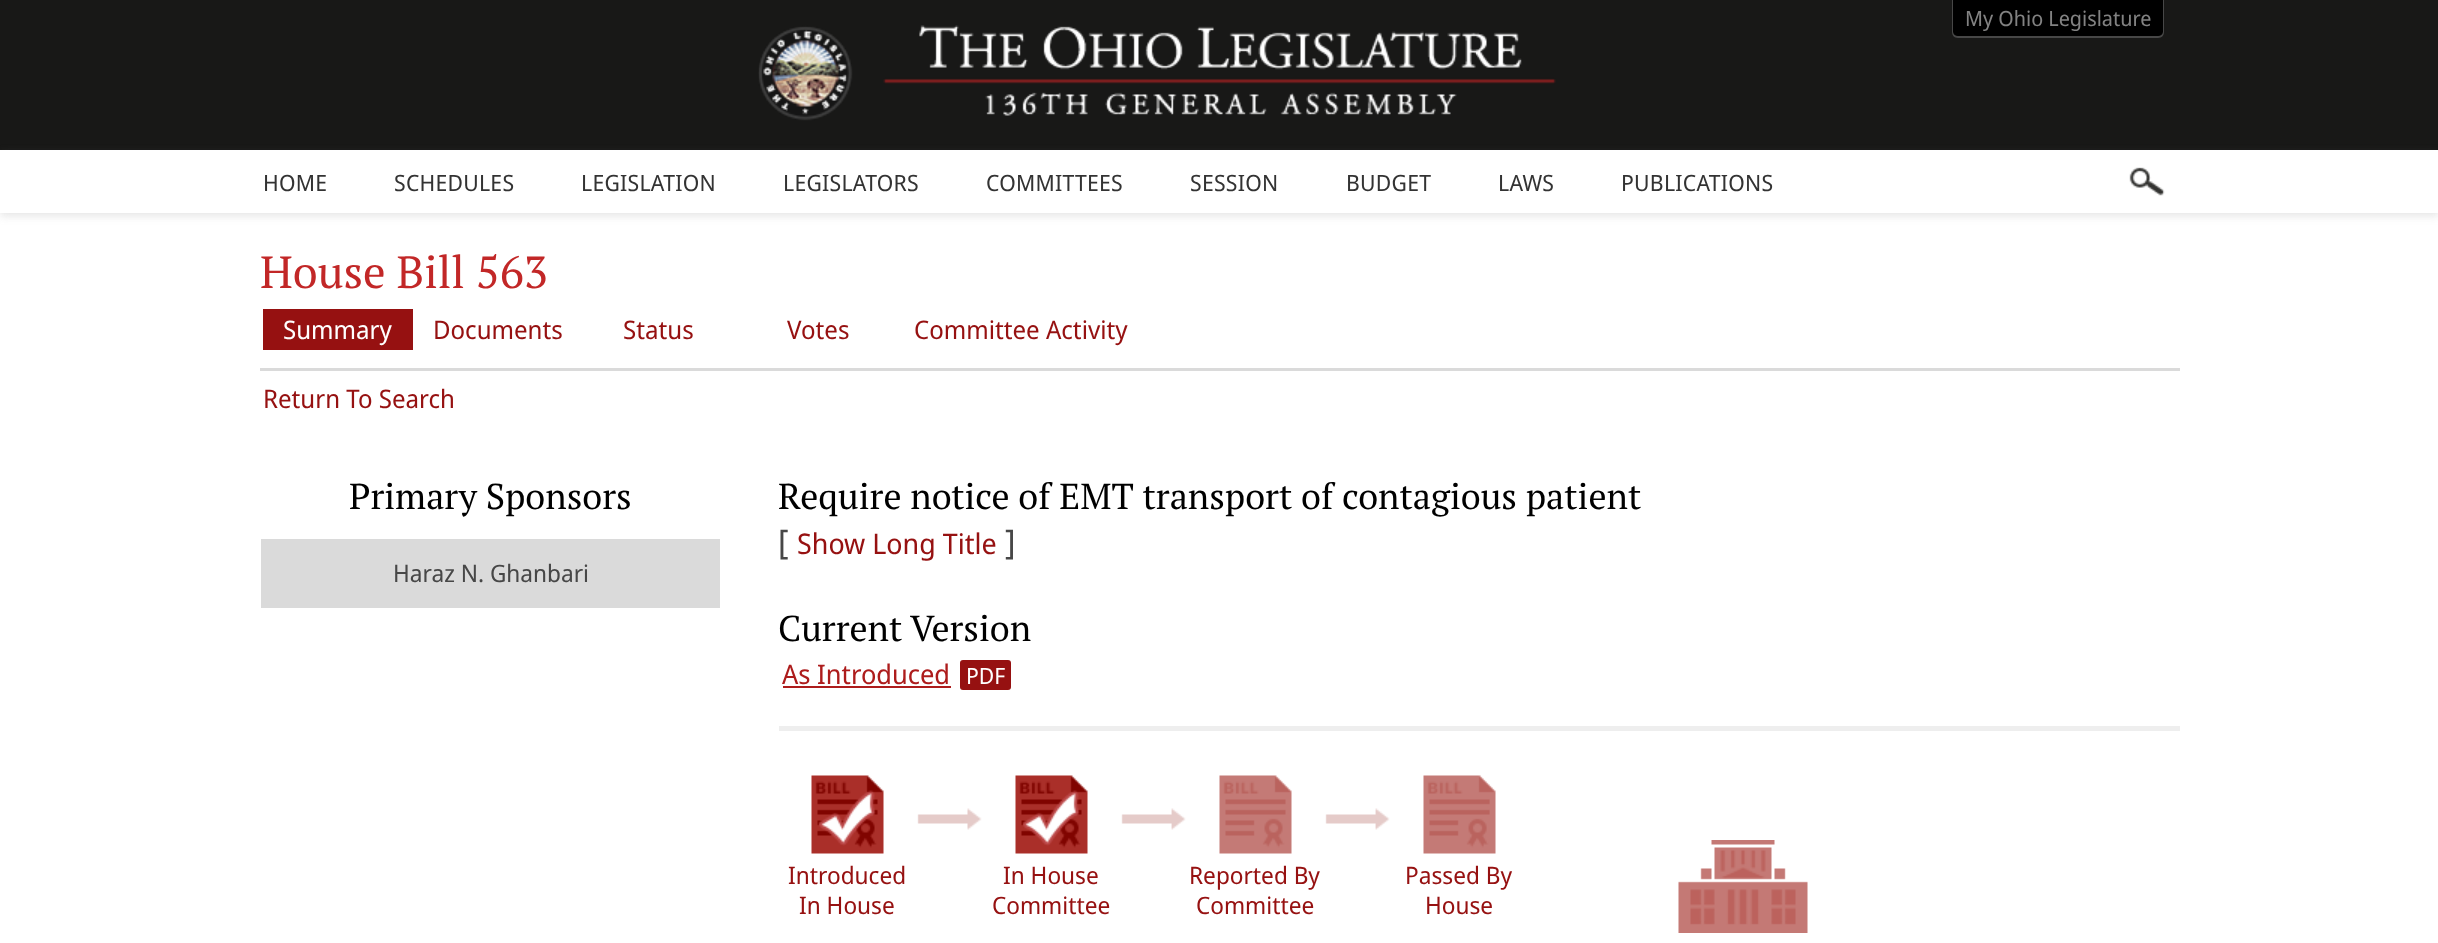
<svg xmlns="http://www.w3.org/2000/svg" width="2438" height="943">
	<defs>
		<clipPath id="clip1"><path d="M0 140H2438V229H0ZM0 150H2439V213H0Z" clip-rule="evenodd" /></clipPath>
	</defs>
	<rect width="100%" height="100%" fill="#FFFFFF" />
	<rect x="0" y="0" width="2438" height="150" fill="#181817" />
	<path d="M1953 0H2163V31C2163 34 2161 36 2158 36H1958C1955 36 1953 34 1953 31Z" fill="#000000" />
	<path d="M1952 0H2164V32C2164 35 2162 38 2158 38H1958C1954 38 1952 35 1952 32ZM1953 0H2163V32C2163 34 2161 36 2158 36H1958C1955 36 1953 34 1953 32Z" fill="#474747" fill-rule="evenodd" />
	<text x="1965" y="26" font-family="Noto Sans Display" font-size="21" fill="#828282">My Ohio Legislature</text>
	<image x="758" y="25" width="798" height="96" href="assets/img1.png" />
	<g clip-path="url(#clip1)">
		<rect x="0" y="153" width="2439" height="63" fill="#7D7D7D" fill-opacity="0.2" filter="blur(4px)" />
	</g>
	<g font-family="Noto Sans Display" font-size="22.5" letter-spacing="0.25" fill="#333333">
		<text x="263" y="191">HOME</text>
		<text x="394" y="191">SCHEDULES</text>
		<text x="581" y="191">LEGISLATION</text>
		<text x="783" y="191">LEGISLATORS</text>
		<text x="986" y="191">COMMITTEES</text>
		<text x="1190" y="191">SESSION</text>
		<text x="1346" y="191">BUDGET</text>
		<text x="1498" y="191">LAWS</text>
		<text x="1621" y="191">PUBLICATIONS</text>
	</g>
	<image x="2129" y="167" width="36" height="29" href="assets/img2.png" />
	<rect x="260" y="368" width="1920" height="3" fill="#DADADA" />
	<text x="260" y="288" font-family="PT Serif" font-size="45" fill="#C22727">House Bill 563</text>
	<rect x="263" y="309" width="150" height="41" fill="#961111" />
	<text x="283" y="339" font-family="Noto Sans Display" font-size="25.5" fill="#FFFFFF">Summary</text>
	<g font-family="Noto Sans Display" font-size="25.5" fill="#961111">
		<text x="433" y="339">Documents</text>
		<text x="623" y="339">Status</text>
		<text x="787" y="339">Votes</text>
		<text x="914" y="339">Committee Activity</text>
		<text x="263" y="408">Return To Search</text>
	</g>
	<text x="349" y="509" font-family="PT Serif" font-size="36" fill="#000000">Primary Sponsors</text>
	<rect x="261" y="539" width="459" height="69" fill="#DADADA" />
	<text x="393" y="582" font-family="Noto Sans Display" font-size="24" fill="#474747">Haraz N. Ghanbari</text>
	<text x="778" y="509" font-family="PT Serif" font-size="36" fill="#000000">Require notice of EMT transport of contagious patient</text>
	<text x="778" y="554" font-family="Noto Sans Display" font-size="34" fill="#474747">[</text>
	<text x="797" y="554" font-family="Noto Sans Display" font-size="28.5" fill="#961111">Show Long Title</text>
	<text x="1005" y="554" font-family="Noto Sans Display" font-size="34" fill="#474747">]</text>
	<text x="778" y="641" font-family="PT Serif" font-size="36" fill="#000000">Current Version</text>
	<text x="782" y="684" font-family="Noto Sans Display" font-size="27" fill="#AD1C1C">As Introduced</text>
	<rect x="783" y="686" width="168" height="2" fill="#AD1C1C" />
	<rect x="960" y="660" width="51" height="30" rx="3" fill="#961111" />
	<text x="966" y="684" font-family="Noto Sans Display" font-size="22.5" fill="#FFFFFF">PDF</text>
	<rect x="779" y="726" width="1401" height="5" fill="#EEEEEE" />
	<image x="917" y="808" width="65" height="22" href="assets/img3.png" />
	<image x="1121" y="808" width="65" height="22" href="assets/img4.png" />
	<image x="1325" y="808" width="65" height="22" href="assets/img4.png" />
	<image x="811" y="775" width="73" height="79" href="assets/img5.png" />
	<g font-family="Noto Sans Display" font-size="24" fill="#961111">
		<text x="788" y="884">Introduced</text>
		<text x="799" y="914">In House</text>
	</g>
	<image x="1015" y="775" width="73" height="79" href="assets/img5.png" />
	<g font-family="Noto Sans Display" font-size="24" fill="#961111">
		<text x="1003" y="884">In House</text>
		<text x="992" y="914">Committee</text>
	</g>
	<image x="1219" y="775" width="73" height="79" href="assets/img6.png" />
	<g font-family="Noto Sans Display" font-size="24" fill="#961111">
		<text x="1189" y="884">Reported By</text>
		<text x="1196" y="914">Committee</text>
	</g>
	<image x="1423" y="775" width="73" height="79" href="assets/img7.png" />
	<g font-family="Noto Sans Display" font-size="24" fill="#961111">
		<text x="1405" y="884">Passed By</text>
		<text x="1425" y="914">House</text>
	</g>
	<image x="1678" y="840" width="130" height="93" href="assets/img8.png" />
</svg>
